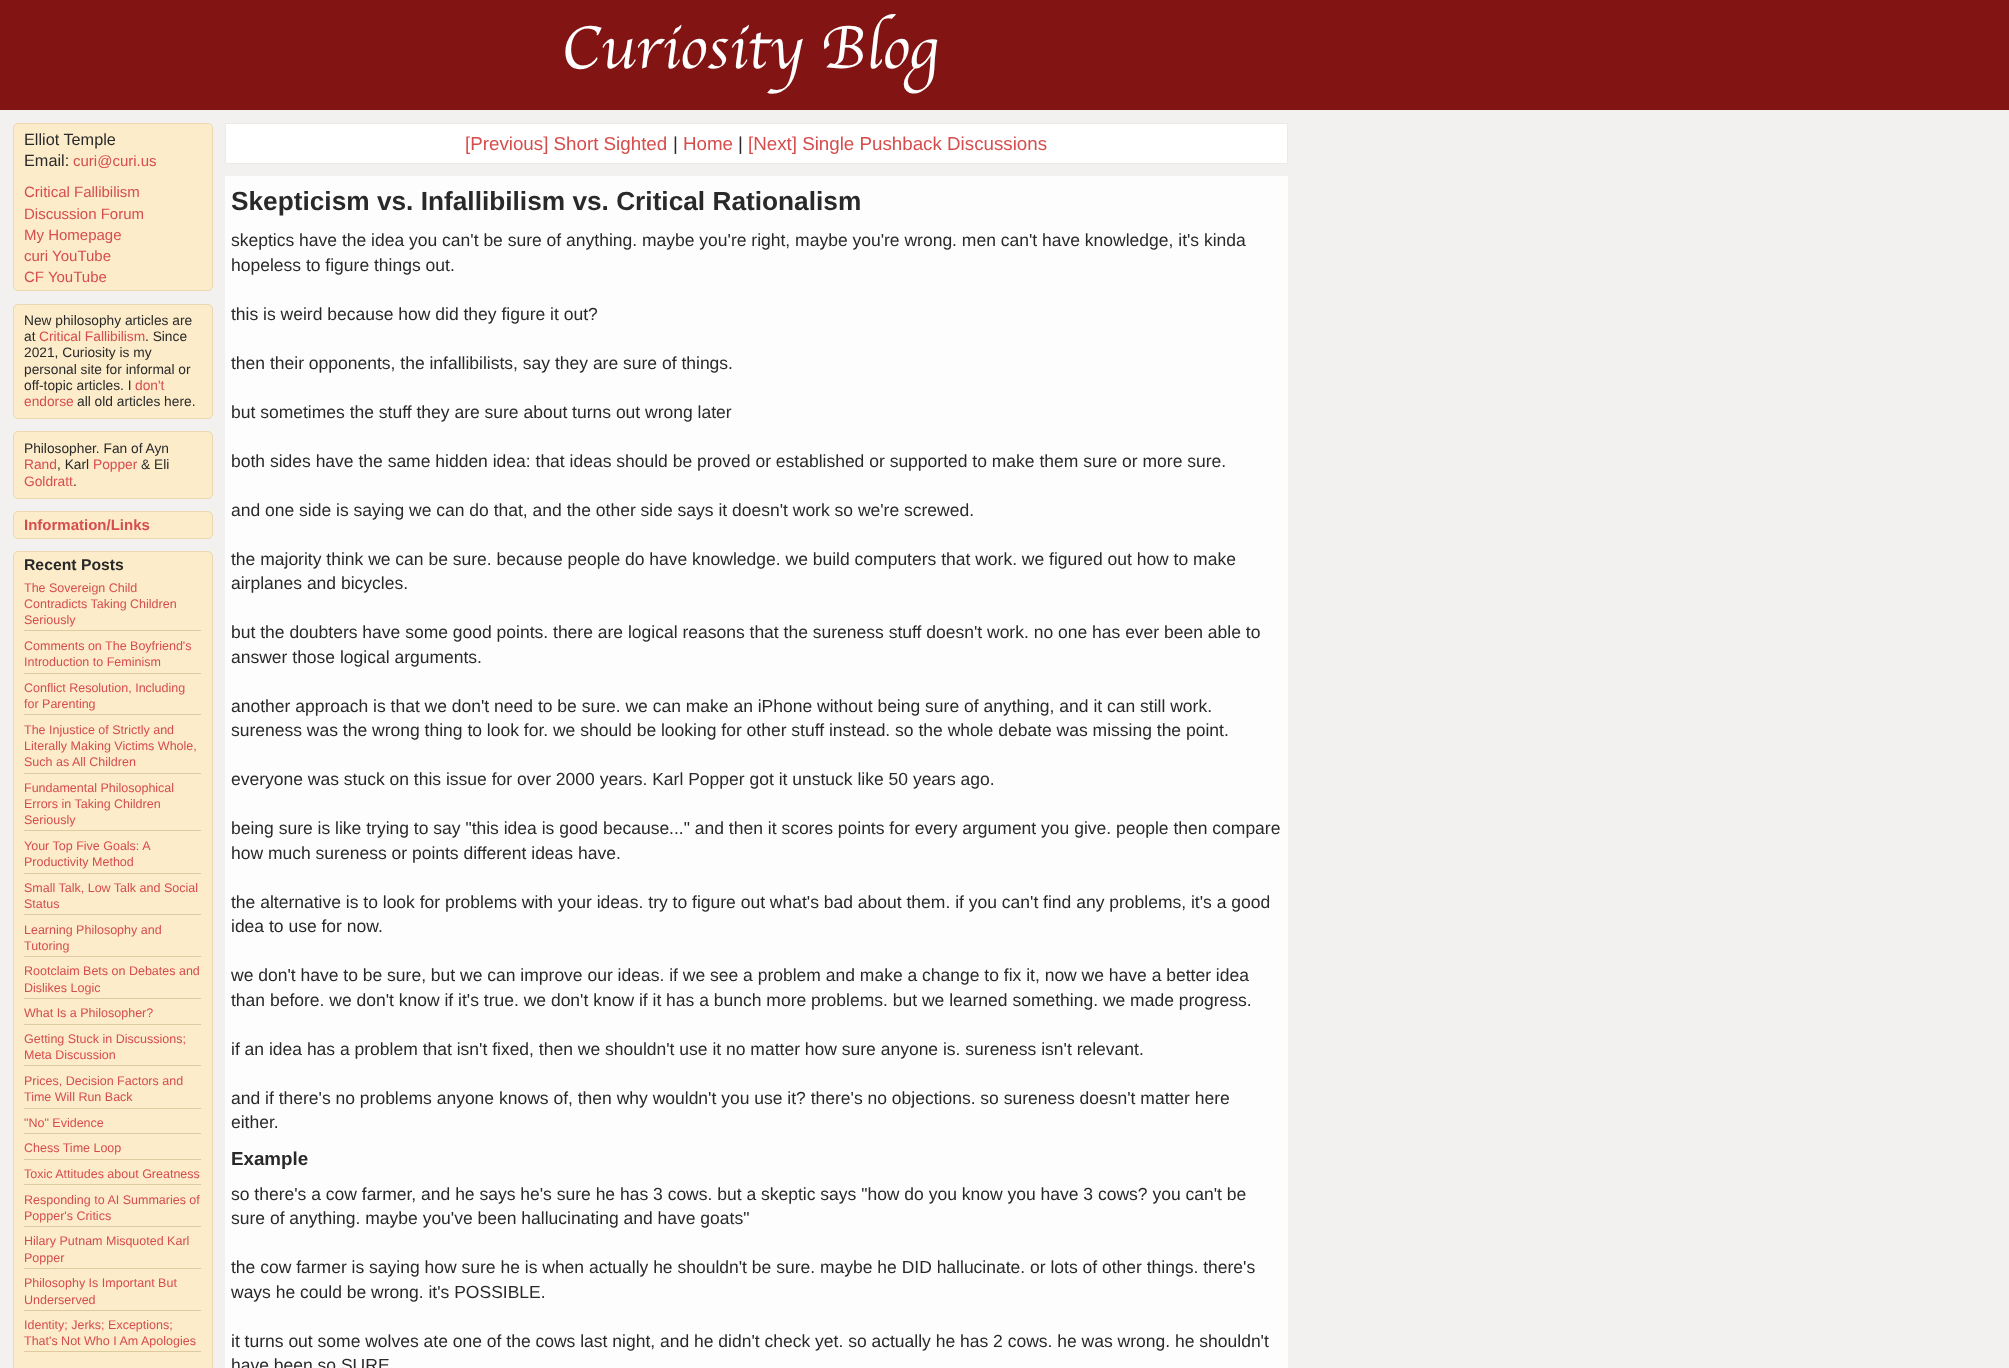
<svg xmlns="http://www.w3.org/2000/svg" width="2009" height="1368">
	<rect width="100%" height="100%" fill="#F2F1F0" />
	<rect x="0" y="0" width="2009" height="110" fill="#821414" />
	<text x="561" y="68" font-family="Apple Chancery" font-size="62.5" font-weight="100" fill="#FFFFFF">Curiosity Blog</text>
	<rect x="13.5" y="123.5" width="199" height="167" rx="4.5" fill="#FCECCA" stroke="#EBD8B0" />
	<g font-family="Liberation Sans" font-size="16.25" fill="#292929">
		<text x="24" y="145">Elliot Temple</text>
		<text x="24" y="166">Email:</text>
	</g>
	<g font-family="Liberation Sans" font-size="15" fill="#D64D4D">
		<text x="73" y="166">curi@curi.us</text>
		<text x="24" y="197">Critical Fallibilism</text>
		<text x="24" y="219">Discussion Forum</text>
		<text x="24" y="240">My Homepage</text>
		<text x="24" y="261">curi YouTube</text>
		<text x="24" y="282">CF YouTube</text>
	</g>
	<rect x="13.5" y="304.5" width="199" height="114" rx="4.5" fill="#FCECCA" stroke="#EBD8B0" />
	<g font-family="Liberation Sans" font-size="13.75" fill="#292929">
		<text x="24" y="325">New philosophy articles are</text>
		<text x="24" y="341">at</text>
	</g>
	<text x="39" y="341" font-family="Liberation Sans" font-size="13.75" fill="#D64D4D">Critical Fallibilism</text>
	<g font-family="Liberation Sans" font-size="13.75" fill="#292929">
		<text x="145" y="341">. Since</text>
		<text x="24" y="357">2021, Curiosity is my</text>
		<text x="24" y="374">personal site for informal or</text>
		<text x="24" y="390">off-topic articles. I</text>
	</g>
	<g font-family="Liberation Sans" font-size="13.75" fill="#D64D4D">
		<text x="135" y="390">don't</text>
		<text x="24" y="406">endorse</text>
	</g>
	<text x="77" y="406" font-family="Liberation Sans" font-size="13.75" fill="#292929">all old articles here.</text>
	<rect x="13.5" y="431.5" width="199" height="67" rx="4.5" fill="#FCECCA" stroke="#EBD8B0" />
	<text x="24" y="453" font-family="Liberation Sans" font-size="13.75" fill="#292929">Philosopher. Fan of Ayn</text>
	<text x="24" y="469" font-family="Liberation Sans" font-size="13.75" fill="#D64D4D">Rand</text>
	<text x="57" y="469" font-family="Liberation Sans" font-size="13.75" fill="#292929">, Karl</text>
	<text x="93" y="469" font-family="Liberation Sans" font-size="13.75" fill="#D64D4D">Popper</text>
	<text x="141" y="469" font-family="Liberation Sans" font-size="13.75" fill="#292929">&amp; Eli</text>
	<text x="24" y="486" font-family="Liberation Sans" font-size="13.75" fill="#D64D4D">Goldratt</text>
	<text x="73" y="486" font-family="Liberation Sans" font-size="13.75" fill="#292929">.</text>
	<rect x="13.5" y="511.5" width="199" height="27" rx="4.5" fill="#FCECCA" stroke="#EBD8B0" />
	<text x="24" y="530" font-family="Liberation Sans" font-size="15" font-weight="700" fill="#D64D4D">Information/Links</text>
	<rect x="13.5" y="551.5" width="199" height="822" rx="4.5" fill="#FCECCA" stroke="#EBD8B0" />
	<text x="24" y="570" font-family="Liberation Sans" font-size="15.75" font-weight="700" fill="#292929">Recent Posts</text>
	<rect x="24" y="630" width="177" height="1" fill="#DECAA0" />
	<g font-family="Liberation Sans" font-size="12.5" fill="#D64D4D">
		<text x="24" y="592">The Sovereign Child</text>
		<text x="24" y="608">Contradicts Taking Children</text>
		<text x="24" y="624">Seriously</text>
	</g>
	<rect x="24" y="673" width="177" height="1" fill="#DECAA0" />
	<g font-family="Liberation Sans" font-size="12.5" fill="#D64D4D">
		<text x="24" y="650">Comments on The Boyfriend's</text>
		<text x="24" y="666">Introduction to Feminism</text>
	</g>
	<rect x="24" y="714" width="177" height="1" fill="#DECAA0" />
	<g font-family="Liberation Sans" font-size="12.5" fill="#D64D4D">
		<text x="24" y="692">Conflict Resolution, Including</text>
		<text x="24" y="708">for Parenting</text>
	</g>
	<rect x="24" y="773" width="177" height="1" fill="#DECAA0" />
	<g font-family="Liberation Sans" font-size="12.5" fill="#D64D4D">
		<text x="24" y="734">The Injustice of Strictly and</text>
		<text x="24" y="750">Literally Making Victims Whole,</text>
		<text x="24" y="766">Such as All Children</text>
	</g>
	<rect x="24" y="830" width="177" height="1" fill="#DECAA0" />
	<g font-family="Liberation Sans" font-size="12.5" fill="#D64D4D">
		<text x="24" y="792">Fundamental Philosophical</text>
		<text x="24" y="808">Errors in Taking Children</text>
		<text x="24" y="824">Seriously</text>
	</g>
	<rect x="24" y="873" width="177" height="1" fill="#DECAA0" />
	<g font-family="Liberation Sans" font-size="12.5" fill="#D64D4D">
		<text x="24" y="850">Your Top Five Goals: A</text>
		<text x="24" y="866">Productivity Method</text>
	</g>
	<rect x="24" y="914" width="177" height="1" fill="#DECAA0" />
	<g font-family="Liberation Sans" font-size="12.5" fill="#D64D4D">
		<text x="24" y="892">Small Talk, Low Talk and Social</text>
		<text x="24" y="908">Status</text>
	</g>
	<rect x="24" y="956" width="177" height="1" fill="#DECAA0" />
	<g font-family="Liberation Sans" font-size="12.5" fill="#D64D4D">
		<text x="24" y="934">Learning Philosophy and</text>
		<text x="24" y="950">Tutoring</text>
	</g>
	<rect x="24" y="998" width="177" height="1" fill="#DECAA0" />
	<g font-family="Liberation Sans" font-size="12.5" fill="#D64D4D">
		<text x="24" y="975">Rootclaim Bets on Debates and</text>
		<text x="24" y="992">Dislikes Logic</text>
	</g>
	<rect x="24" y="1024" width="177" height="1" fill="#DECAA0" />
	<text x="24" y="1017" font-family="Liberation Sans" font-size="12.5" fill="#D64D4D">What Is a Philosopher?</text>
	<rect x="24" y="1065" width="177" height="1" fill="#DECAA0" />
	<g font-family="Liberation Sans" font-size="12.5" fill="#D64D4D">
		<text x="24" y="1043">Getting Stuck in Discussions;</text>
		<text x="24" y="1059">Meta Discussion</text>
	</g>
	<rect x="24" y="1108" width="177" height="1" fill="#DECAA0" />
	<g font-family="Liberation Sans" font-size="12.5" fill="#D64D4D">
		<text x="24" y="1085">Prices, Decision Factors and</text>
		<text x="24" y="1101">Time Will Run Back</text>
	</g>
	<rect x="24" y="1133" width="177" height="1" fill="#DECAA0" />
	<text x="24" y="1127" font-family="Liberation Sans" font-size="12.5" fill="#D64D4D">"No" Evidence</text>
	<rect x="24" y="1159" width="177" height="1" fill="#DECAA0" />
	<text x="24" y="1152" font-family="Liberation Sans" font-size="12.5" fill="#D64D4D">Chess Time Loop</text>
	<rect x="24" y="1184" width="177" height="1" fill="#DECAA0" />
	<text x="24" y="1178" font-family="Liberation Sans" font-size="12.5" fill="#D64D4D">Toxic Attitudes about Greatness</text>
	<rect x="24" y="1226" width="177" height="1" fill="#DECAA0" />
	<g font-family="Liberation Sans" font-size="12.5" fill="#D64D4D">
		<text x="24" y="1204">Responding to AI Summaries of</text>
		<text x="24" y="1220">Popper's Critics</text>
	</g>
	<rect x="24" y="1268" width="177" height="1" fill="#DECAA0" />
	<g font-family="Liberation Sans" font-size="12.5" fill="#D64D4D">
		<text x="24" y="1245">Hilary Putnam Misquoted Karl</text>
		<text x="24" y="1262">Popper</text>
	</g>
	<rect x="24" y="1310" width="177" height="1" fill="#DECAA0" />
	<g font-family="Liberation Sans" font-size="12.5" fill="#D64D4D">
		<text x="24" y="1287">Philosophy Is Important But</text>
		<text x="24" y="1304">Underserved</text>
	</g>
	<rect x="24" y="1351" width="177" height="1" fill="#DECAA0" />
	<g font-family="Liberation Sans" font-size="12.5" fill="#D64D4D">
		<text x="24" y="1329">Identity; Jerks; Exceptions;</text>
		<text x="24" y="1345">That's Not Who I Am Apologies</text>
	</g>
	<rect x="225.5" y="123.5" width="1062" height="40" fill="#FFFFFF" stroke="#EBEAE9" />
	<text x="465" y="150" font-family="Liberation Sans" font-size="18.75" fill="#D64D4D">[Previous] Short Sighted</text>
	<text x="673" y="150" font-family="Liberation Sans" font-size="18.75" fill="#292929">|</text>
	<text x="683" y="150" font-family="Liberation Sans" font-size="18.75" fill="#D64D4D">Home</text>
	<text x="738" y="150" font-family="Liberation Sans" font-size="18.75" fill="#292929">|</text>
	<text x="748" y="150" font-family="Liberation Sans" font-size="18.75" fill="#D64D4D">[Next] Single Pushback Discussions</text>
	<rect x="225" y="176" width="1063" height="1192" fill="#FDFDFD" />
	<text x="231" y="210" font-family="Liberation Sans" font-size="26.25" font-weight="700" fill="#292929">Skepticism vs. Infallibilism vs. Critical Rationalism</text>
	<g font-family="Liberation Sans" font-size="17.5" fill="#292929">
		<text x="231" y="246">skeptics have the idea you can't be sure of anything. maybe you're right, maybe you're wrong. men can't have knowledge, it's kinda</text>
		<text x="231" y="271">hopeless to figure things out.</text>
		<text x="231" y="320">this is weird because how did they figure it out?</text>
		<text x="231" y="369">then their opponents, the infallibilists, say they are sure of things.</text>
		<text x="231" y="418">but sometimes the stuff they are sure about turns out wrong later</text>
		<text x="231" y="467">both sides have the same hidden idea: that ideas should be proved or established or supported to make them sure or more sure.</text>
		<text x="231" y="516">and one side is saying we can do that, and the other side says it doesn't work so we're screwed.</text>
		<text x="231" y="565">the majority think we can be sure. because people do have knowledge. we build computers that work. we figured out how to make</text>
		<text x="231" y="589">airplanes and bicycles.</text>
		<text x="231" y="638">but the doubters have some good points. there are logical reasons that the sureness stuff doesn't work. no one has ever been able to</text>
		<text x="231" y="663">answer those logical arguments.</text>
		<text x="231" y="712">another approach is that we don't need to be sure. we can make an iPhone without being sure of anything, and it can still work.</text>
		<text x="231" y="736">sureness was the wrong thing to look for. we should be looking for other stuff instead. so the whole debate was missing the point.</text>
		<text x="231" y="785">everyone was stuck on this issue for over 2000 years. Karl Popper got it unstuck like 50 years ago.</text>
		<text x="231" y="834">being sure is like trying to say "this idea is good because..." and then it scores points for every argument you give. people then compare</text>
		<text x="231" y="859">how much sureness or points different ideas have.</text>
		<text x="231" y="908">the alternative is to look for problems with your ideas. try to figure out what's bad about them. if you can't find any problems, it's a good</text>
		<text x="231" y="932">idea to use for now.</text>
		<text x="231" y="981">we don't have to be sure, but we can improve our ideas. if we see a problem and make a change to fix it, now we have a better idea</text>
		<text x="231" y="1006">than before. we don't know if it's true. we don't know if it has a bunch more problems. but we learned something. we made progress.</text>
		<text x="231" y="1055">if an idea has a problem that isn't fixed, then we shouldn't use it no matter how sure anyone is. sureness isn't relevant.</text>
		<text x="231" y="1104">and if there's no problems anyone knows of, then why wouldn't you use it? there's no objections. so sureness doesn't matter here</text>
		<text x="231" y="1128">either.</text>
	</g>
	<text x="231" y="1165" font-family="Liberation Sans" font-size="18.75" font-weight="700" fill="#292929">Example</text>
	<g font-family="Liberation Sans" font-size="17.5" fill="#292929">
		<text x="231" y="1200">so there's a cow farmer, and he says he's sure he has 3 cows. but a skeptic says "how do you know you have 3 cows? you can't be</text>
		<text x="231" y="1224">sure of anything. maybe you've been hallucinating and have goats"</text>
		<text x="231" y="1273">the cow farmer is saying how sure he is when actually he shouldn't be sure. maybe he DID hallucinate. or lots of other things. there's</text>
		<text x="231" y="1298">ways he could be wrong. it's POSSIBLE.</text>
		<text x="231" y="1347">it turns out some wolves ate one of the cows last night, and he didn't check yet. so actually he has 2 cows. he was wrong. he shouldn't</text>
		<text x="231" y="1371">have been so SURE</text>
	</g>
</svg>
